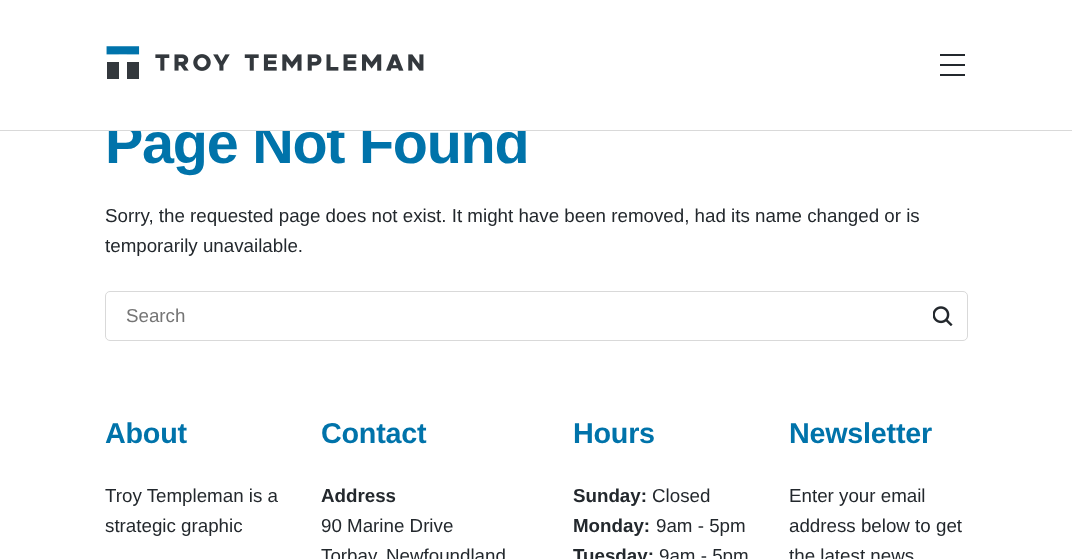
<svg xmlns="http://www.w3.org/2000/svg" width="1072" height="559">
	<rect width="100%" height="100%" fill="#FFFFFF" />
	<text x="105" y="163" font-family="Liberation Sans" font-size="57.5" font-weight="700" letter-spacing="-1.25" fill="#0073AA">Page Not Found</text>
	<rect x="108" y="121" width="418" height="9" fill="#FFFFFF" />
	<rect x="0" y="130" width="1072" height="1" fill="#D9D9D9" />
	<image x="106" y="46" width="318" height="33" href="assets/img1.png" />
	<rect x="940" y="54" width="25" height="2" fill="#23282D" />
	<rect x="940" y="74" width="25" height="2" fill="#23282D" />
	<rect x="940" y="64" width="25" height="2" fill="#23282D" />
	<g font-family="Liberation Sans" font-size="18.75" fill="#23282D">
		<text x="105" y="222">Sorry, the requested page does not exist. It might have been removed, had its name changed or is</text>
		<text x="105" y="252">temporarily unavailable.</text>
	</g>
	<rect x="105.5" y="291.5" width="862" height="49" rx="4.5" fill="none" stroke="#D9D9D9" />
	<text x="126" y="322" font-family="Liberation Sans" font-size="18.75" fill="#757575">Search</text>
	<image x="933" y="306" width="20" height="20" href="assets/img2.png" />
	<text x="105" y="443" font-family="Liberation Sans" font-size="28.75" font-weight="700" letter-spacing="-0.25" fill="#0073AA">About</text>
	<g font-family="Liberation Sans" font-size="18.75" fill="#23282D">
		<text x="105" y="502">Troy Templeman is a</text>
		<text x="105" y="532">strategic graphic</text>
	</g>
	<text x="321" y="443" font-family="Liberation Sans" font-size="28.75" font-weight="700" letter-spacing="-0.25" fill="#0073AA">Contact</text>
	<text x="321" y="502" font-family="Liberation Sans" font-size="18.75" font-weight="700" fill="#23282D">Address</text>
	<g font-family="Liberation Sans" font-size="18.75" fill="#23282D">
		<text x="321" y="532">90 Marine Drive</text>
		<text x="321" y="562">Torbay</text>
		<text x="386" y="562">Newfoundland</text>
	</g>
	<text x="573" y="443" font-family="Liberation Sans" font-size="28.75" font-weight="700" letter-spacing="-0.25" fill="#0073AA">Hours</text>
	<text x="573" y="502" font-family="Liberation Sans" font-size="18.75" font-weight="700" fill="#23282D">Sunday:</text>
	<text x="652" y="502" font-family="Liberation Sans" font-size="18.75" fill="#23282D">Closed</text>
	<text x="573" y="532" font-family="Liberation Sans" font-size="18.75" font-weight="700" fill="#23282D">Monday:</text>
	<text x="656" y="532" font-family="Liberation Sans" font-size="18.75" fill="#23282D">9am - 5pm</text>
	<text x="573" y="562" font-family="Liberation Sans" font-size="18.75" font-weight="700" fill="#23282D">Tuesday:</text>
	<text x="659" y="562" font-family="Liberation Sans" font-size="18.75" fill="#23282D">9am - 5pm</text>
	<text x="789" y="443" font-family="Liberation Sans" font-size="28.75" font-weight="700" letter-spacing="-0.25" fill="#0073AA">Newsletter</text>
	<g font-family="Liberation Sans" font-size="18.75" fill="#23282D">
		<text x="789" y="502">Enter your email</text>
		<text x="789" y="532">address below to get</text>
		<text x="789" y="562">the latest news</text>
	</g>
</svg>
